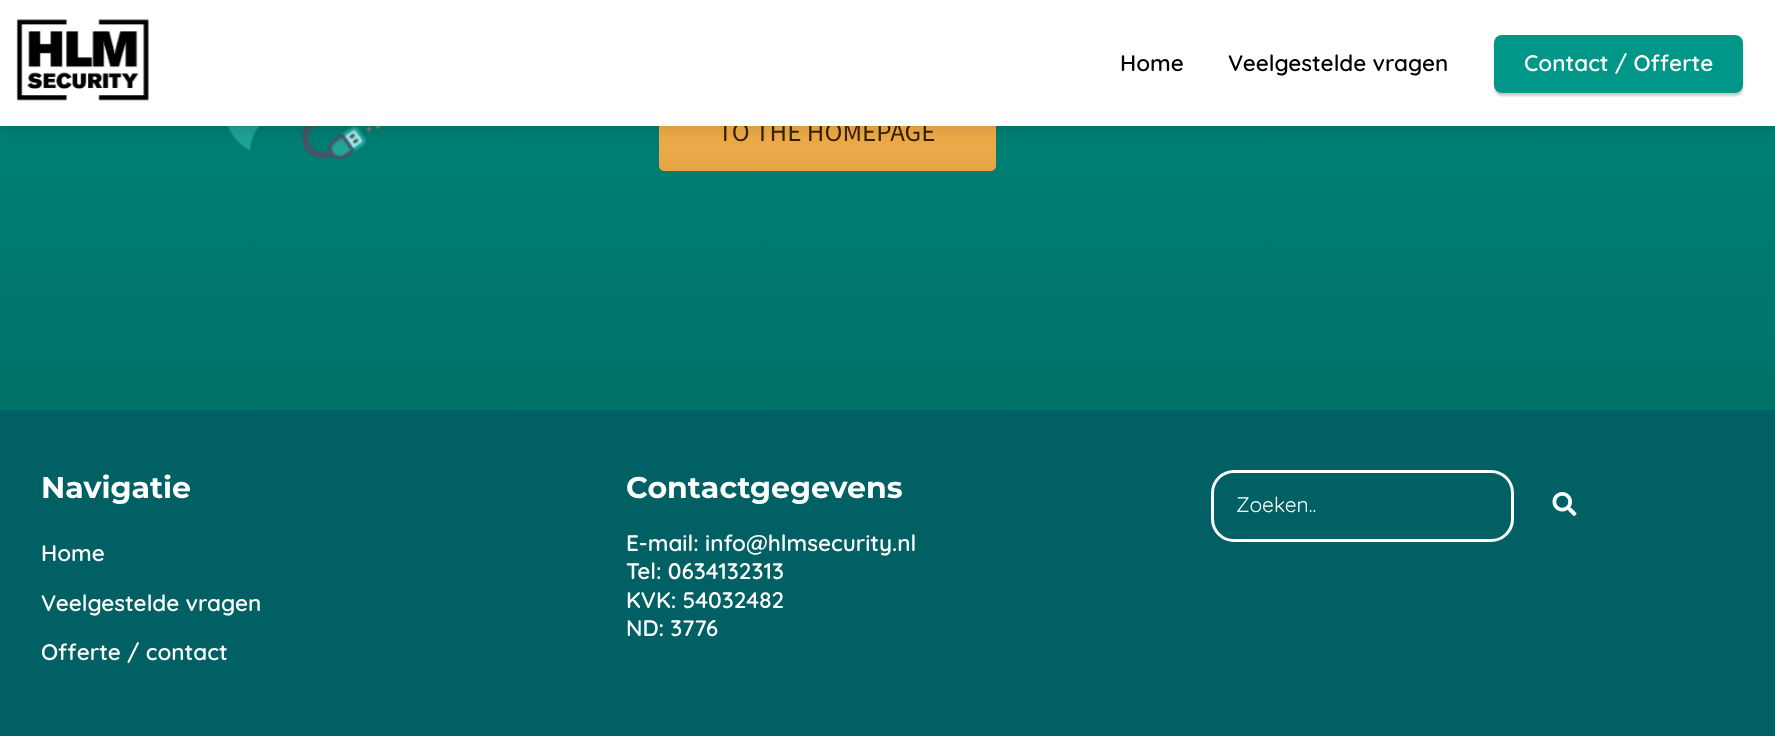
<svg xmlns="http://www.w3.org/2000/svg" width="1775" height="736">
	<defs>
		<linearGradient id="g1" gradientUnits="userSpaceOnUse" x1="888" y1="-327" x2="888" y2="410"><stop offset="0" stop-color="#009688" /><stop offset="1" stop-color="#007268" /></linearGradient>
		<linearGradient id="g2" gradientUnits="userSpaceOnUse" x1="827" y1="91" x2="827" y2="171"><stop offset="0" stop-color="#000000" stop-opacity="0" /><stop offset="1" stop-color="#000000" stop-opacity="0.1" /></linearGradient>
	</defs>
	<rect width="100%" height="100%" fill="#006064" />
	<rect x="0" y="126" width="1775" height="284" fill="url(#g1)" />
	<image x="226" y="126" width="155" height="35" href="assets/img2.png" />
	<rect x="659" y="92" width="337" height="79" rx="5" fill="#FFB74D" />
	<rect x="659" y="92" width="337" height="79" rx="5" fill="url(#g2)" />
	<rect x="0" y="0" width="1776" height="126" fill="#000000" fill-opacity="0.2" filter="blur(11px)" />
	<text x="718" y="141" font-family="Source Sans Pro" font-size="27" fill="#341F00">TO THE HOMEPAGE</text>
	<rect x="0" y="0" width="1775" height="126" fill="#FFFFFF" />
	<image x="16" y="19" width="134" height="82" href="assets/img1.png" />
	<g font-family="Quicksand" font-size="22.5" font-weight="600" fill="#000000">
		<text x="1120" y="71">Home</text>
		<text x="1228" y="71">Veelgestelde vragen</text>
	</g>
	<rect x="1494" y="38" width="249" height="58" rx="8" fill="#000000" fill-opacity="0.2" filter="blur(1px)" />
	<rect x="1494" y="35" width="249" height="58" rx="8" fill="#009688" />
	<text x="1524" y="71" font-family="Quicksand" font-size="22.5" font-weight="600" fill="#FFFFFF">Contact / Offerte</text>
	<text x="41" y="498" font-family="Montserrat" font-size="30" font-weight="100" fill="#FFFFFF">Navigatie</text>
	<g font-family="Quicksand" font-size="22.5" font-weight="600" fill="#FFFFFF">
		<text x="41" y="561">Home</text>
		<text x="41" y="611">Veelgestelde vragen</text>
		<text x="41" y="660">Offerte / contact</text>
	</g>
	<text x="626" y="498" font-family="Montserrat" font-size="30" font-weight="100" fill="#FFFFFF">Contactgegevens</text>
	<g font-family="Quicksand" font-size="22.5" font-weight="600" fill="#FFFFFF">
		<text x="626" y="551">E-mail: info@hlmsecurity.nl</text>
		<text x="626" y="579">Tel: 0634132313</text>
		<text x="626" y="608">KVK: 54032482</text>
		<text x="626" y="636">ND: 3776</text>
	</g>
	<rect x="1212.5" y="471.5" width="300" height="69" rx="21.5" fill="none" stroke="#FFFFFF" stroke-width="3" />
	<text x="1236" y="512" font-family="Quicksand" font-size="21" fill="#FFFFFF">Zoeken..</text>
	<image x="1552" y="492" width="25" height="24" href="assets/img3.png" />
</svg>
